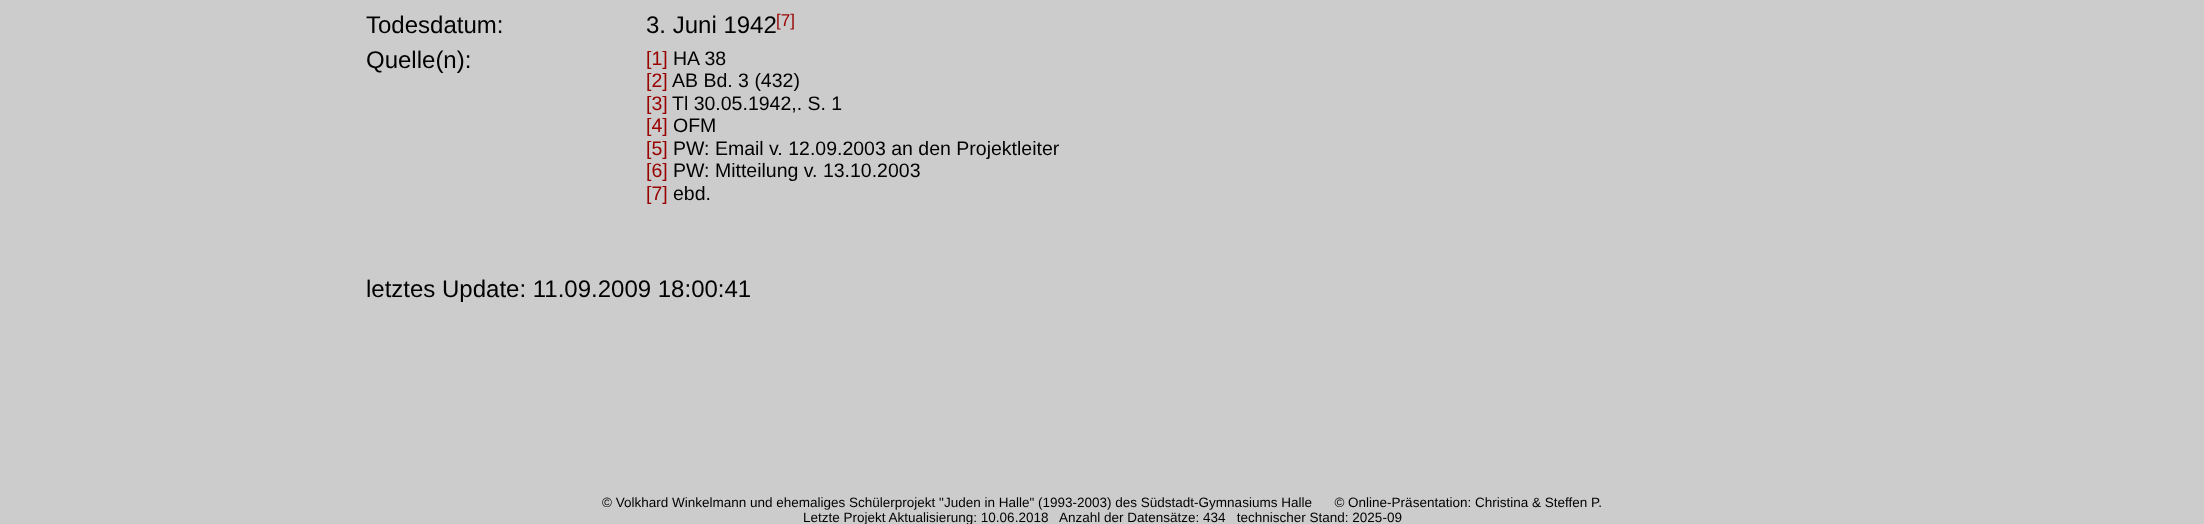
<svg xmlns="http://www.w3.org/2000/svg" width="2204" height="524">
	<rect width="100%" height="100%" fill="#CCCCCC" />
	<g font-family="Liberation Sans" font-size="24" fill="#000000">
		<text x="366" y="33">Todesdatum:</text>
		<text x="646" y="33">3. Juni 1942</text>
	</g>
	<text x="776" y="26" font-family="Liberation Sans" font-size="17" fill="#990000">[7]</text>
	<text x="366" y="68" font-family="Liberation Sans" font-size="24" fill="#000000">Quelle(n):</text>
	<text x="646" y="65" font-family="Liberation Sans" font-size="19.5" fill="#990000">[1]</text>
	<text x="673" y="65" font-family="Liberation Sans" font-size="19.5" fill="#000000">HA 38</text>
	<text x="646" y="87" font-family="Liberation Sans" font-size="19.5" fill="#990000">[2]</text>
	<text x="672" y="87" font-family="Liberation Sans" font-size="19.5" fill="#000000">AB Bd. 3 (432)</text>
	<text x="646" y="110" font-family="Liberation Sans" font-size="19.5" fill="#990000">[3]</text>
	<text x="672" y="110" font-family="Liberation Sans" font-size="19.5" fill="#000000">Tl 30.05.1942,. S. 1</text>
	<text x="646" y="132" font-family="Liberation Sans" font-size="19.5" fill="#990000">[4]</text>
	<text x="673" y="132" font-family="Liberation Sans" font-size="19.5" fill="#000000">OFM</text>
	<text x="646" y="155" font-family="Liberation Sans" font-size="19.5" fill="#990000">[5]</text>
	<text x="673" y="155" font-family="Liberation Sans" font-size="19.5" fill="#000000">PW: Email v. 12.09.2003 an den Projektleiter</text>
	<text x="646" y="177" font-family="Liberation Sans" font-size="19.5" fill="#990000">[6]</text>
	<text x="673" y="177" font-family="Liberation Sans" font-size="19.5" fill="#000000">PW: Mitteilung v. 13.10.2003</text>
	<text x="646" y="200" font-family="Liberation Sans" font-size="19.5" fill="#990000">[7]</text>
	<text x="673" y="200" font-family="Liberation Sans" font-size="19.5" fill="#000000">ebd.</text>
	<text x="366" y="297" font-family="Liberation Sans" font-size="24" fill="#000000">letztes Update: 11.09.2009 18:00:41</text>
	<g font-family="Liberation Sans" font-size="13.5" fill="#000000">
		<text x="602" y="507" xml:space="preserve">© Volkhard Winkelmann und ehemaliges Schülerprojekt "Juden in Halle" (1993-2003) des Südstadt-Gymnasiums Halle      © Online-Präsentation: Christina &amp; Steffen P.</text>
		<text x="803" y="522" xml:space="preserve">Letzte Projekt Aktualisierung: 10.06.2018   Anzahl der Datensätze: 434   technischer Stand: 2025-09</text>
	</g>
</svg>
